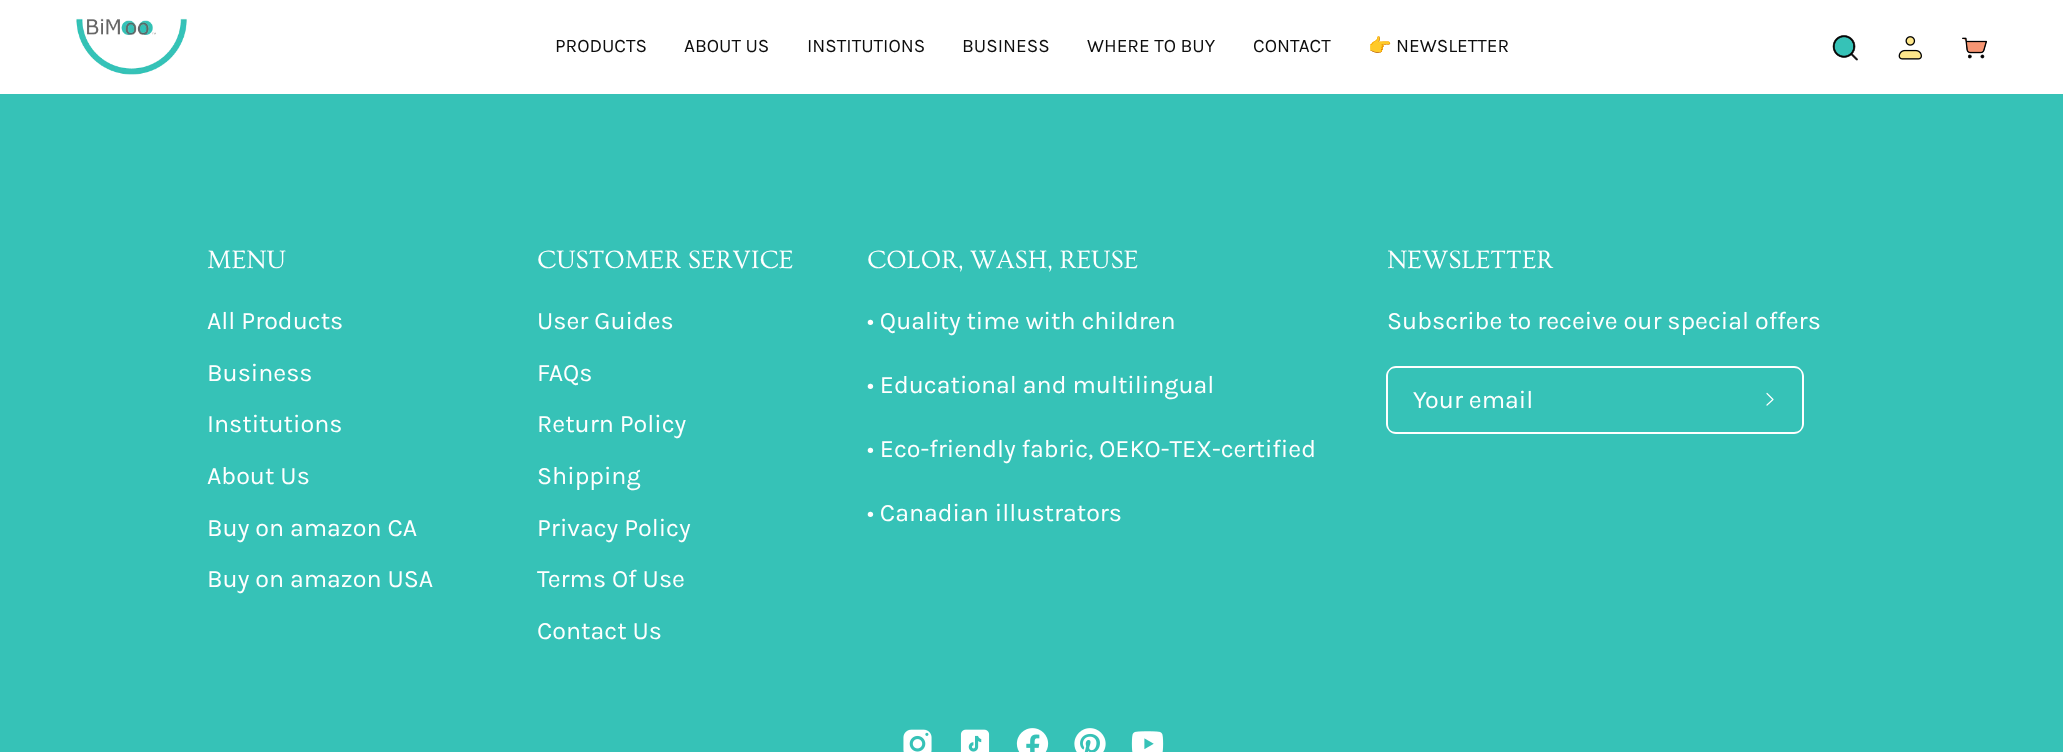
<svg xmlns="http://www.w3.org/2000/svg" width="2063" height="752">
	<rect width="100%" height="100%" fill="#36C2B7" />
	<rect x="0" y="0" width="2063" height="94" fill="#FFFFFF" />
	<image x="76" y="18" width="111" height="57" href="assets/img1.png" />
	<g font-family="Karla" font-size="19" fill="#0D0D0D">
		<text x="555" y="52">PRODUCTS</text>
		<text x="684" y="52">ABOUT US</text>
		<text x="807" y="52">INSTITUTIONS</text>
		<text x="962" y="52">BUSINESS</text>
		<text x="1087" y="52">WHERE TO BUY</text>
		<text x="1253" y="52">CONTACT</text>
	</g>
	<text x="1368" y="52" font-family="Noto Color Emoji" font-size="19" fill="#0D0D0D">👉</text>
	<text x="1396" y="52" font-family="Karla" font-size="19" fill="#0D0D0D">NEWSLETTER</text>
	<image x="1832" y="35" width="26" height="26" href="assets/img2.png" />
	<image x="1898" y="36" width="24" height="24" href="assets/img3.png" />
	<image x="1962" y="37" width="25" height="22" href="assets/img4.png" />
	<text x="207" y="268" font-family="Ovo" font-size="26.4" fill="#FFFFFF">MENU</text>
	<g font-family="Karla" font-size="25" fill="#FFFFFF">
		<text x="207" y="329">All Products</text>
		<text x="207" y="381">Business</text>
		<text x="207" y="432">Institutions</text>
		<text x="207" y="484">About Us</text>
		<text x="207" y="536">Buy on amazon CA</text>
		<text x="207" y="587">Buy on amazon USA</text>
	</g>
	<text x="537" y="268" font-family="Ovo" font-size="26.4" fill="#FFFFFF">CUSTOMER SERVICE</text>
	<g font-family="Karla" font-size="25" fill="#FFFFFF">
		<text x="537" y="329">User Guides</text>
		<text x="537" y="381">FAQs</text>
		<text x="537" y="432">Return Policy</text>
		<text x="537" y="484">Shipping</text>
		<text x="537" y="536">Privacy Policy</text>
		<text x="537" y="587">Terms Of Use</text>
		<text x="537" y="639">Contact Us</text>
	</g>
	<text x="867" y="268" font-family="Ovo" font-size="26.4" fill="#FFFFFF">COLOR, WASH, REUSE</text>
	<g font-family="Karla" font-size="25" fill="#FFFFFF">
		<text x="867" y="329">• Quality time with children</text>
		<text x="867" y="393">• Educational and multilingual</text>
		<text x="867" y="457">• Eco-friendly fabric, OEKO-TEX-certified</text>
		<text x="867" y="521">• Canadian illustrators</text>
	</g>
	<text x="1387" y="268" font-family="Ovo" font-size="26.4" fill="#FFFFFF">NEWSLETTER</text>
	<text x="1387" y="329" font-family="Karla" font-size="25" fill="#FFFFFF">Subscribe to receive our special offers</text>
	<path d="M1396 366H1736V434H1396C1391 434 1386 429 1386 424V376C1386 371 1391 366 1396 366ZM1396 368H1736V432H1396C1391 432 1388 429 1388 424V376C1388 371 1391 368 1396 368Z" fill="#FFFFFF" fill-rule="evenodd" />
	<text x="1413" y="408" font-family="Karla" font-size="25" fill="#FFFFFF">Your email</text>
	<path d="M1736 366H1794C1799 366 1804 371 1804 376V424C1804 429 1799 434 1794 434H1736ZM1736 368H1794C1799 368 1802 371 1802 376V424C1802 429 1799 432 1794 432H1736Z" fill="#FFFFFF" fill-rule="evenodd" />
	<path d="M1767 393.5L1773 399.5L1767 405" fill="none" stroke="#FFFFFF" stroke-width="1.2" stroke-linecap="round" stroke-linejoin="round" />
	<image x="903" y="729" width="29" height="23" href="assets/img5.png" />
	<image x="960" y="729" width="30" height="23" href="assets/img6.png" />
	<image x="1016" y="728" width="33" height="24" href="assets/img7.png" />
	<image x="1074" y="728" width="32" height="24" href="assets/img8.png" />
	<image x="1131" y="731" width="33" height="21" href="assets/img9.png" />
</svg>
